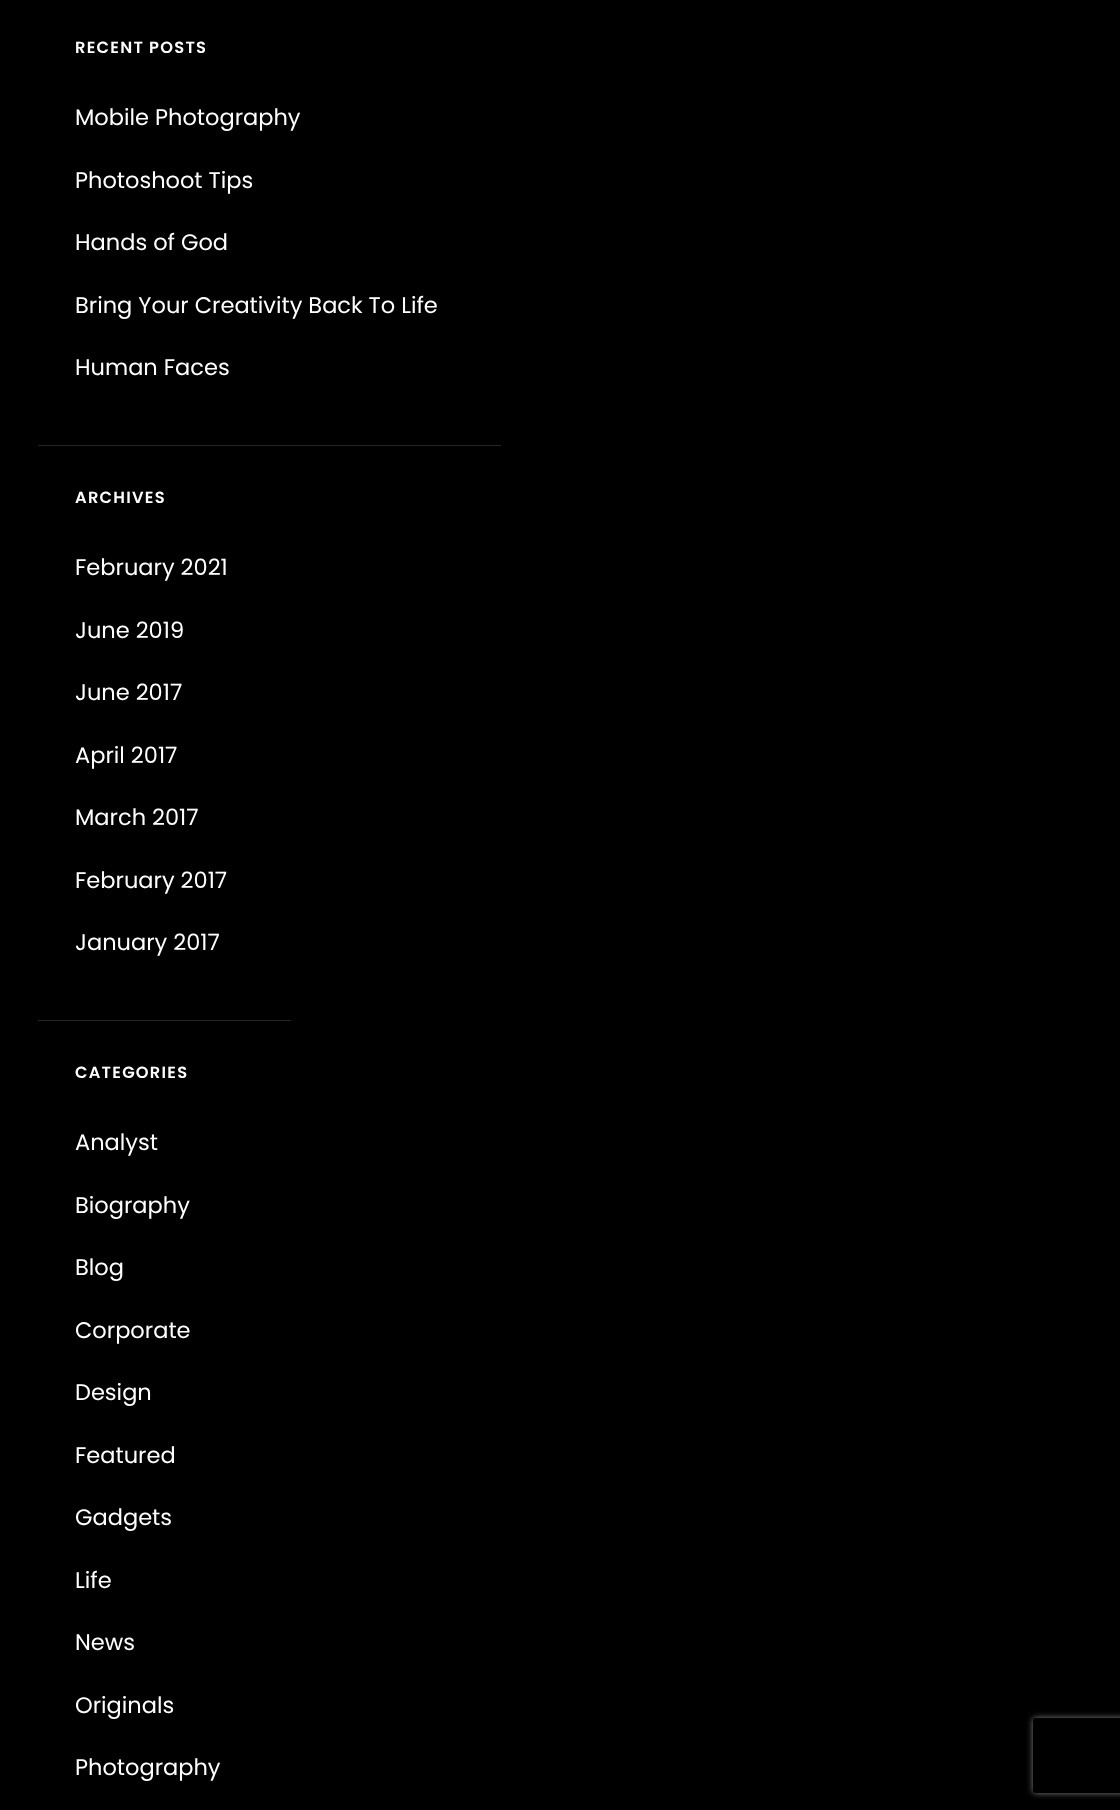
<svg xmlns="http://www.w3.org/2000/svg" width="1120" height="1810">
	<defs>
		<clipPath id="clip1"><path d="M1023 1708H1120V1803H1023ZM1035.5 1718H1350.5C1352 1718 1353 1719 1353 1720.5V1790.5C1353 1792 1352 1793 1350.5 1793H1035.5C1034 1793 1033 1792 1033 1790.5V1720.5C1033 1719 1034 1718 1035.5 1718Z" clip-rule="evenodd" /></clipPath>
	</defs>
	<rect width="100%" height="100%" fill="#000000" />
	<rect x="38" y="445" width="463" height="1" fill="#252525" />
	<text x="75" y="53" font-family="Poppins" font-size="16.25" font-weight="600" letter-spacing="1.25" fill="#FFFFFF">RECENT POSTS</text>
	<g font-family="Poppins" font-size="22.5" fill="#FFFFFF">
		<text x="75" y="125">Mobile Photography</text>
		<text x="75" y="188">Photoshoot Tips</text>
		<text x="75" y="250">Hands of God</text>
		<text x="75" y="313">Bring Your Creativity Back To Life</text>
		<text x="75" y="375">Human Faces</text>
	</g>
	<rect x="38" y="1020" width="253" height="1" fill="#252525" />
	<text x="75" y="503" font-family="Poppins" font-size="16.25" font-weight="600" letter-spacing="1.25" fill="#FFFFFF">ARCHIVES</text>
	<g font-family="Poppins" font-size="22.5" fill="#FFFFFF">
		<text x="75" y="575">February 2021</text>
		<text x="75" y="638">June 2019</text>
		<text x="75" y="700">June 2017</text>
		<text x="75" y="763">April 2017</text>
		<text x="75" y="825">March 2017</text>
		<text x="75" y="888">February 2017</text>
		<text x="75" y="950">January 2017</text>
	</g>
	<text x="75" y="1078" font-family="Poppins" font-size="16.25" font-weight="600" letter-spacing="1.25" fill="#FFFFFF">CATEGORIES</text>
	<g font-family="Poppins" font-size="22.5" fill="#FFFFFF">
		<text x="75" y="1150">Analyst</text>
		<text x="75" y="1213">Biography</text>
		<text x="75" y="1275">Blog</text>
		<text x="75" y="1338">Corporate</text>
		<text x="75" y="1400">Design</text>
		<text x="75" y="1463">Featured</text>
		<text x="75" y="1525">Gadgets</text>
		<text x="75" y="1588">Life</text>
		<text x="75" y="1650">News</text>
		<text x="75" y="1713">Originals</text>
		<text x="75" y="1775">Photography</text>
	</g>
	<g clip-path="url(#clip1)">
		<rect x="1033" y="1718" width="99" height="75" rx="2.5" fill="#808080" filter="blur(3px)" />
	</g>
</svg>
